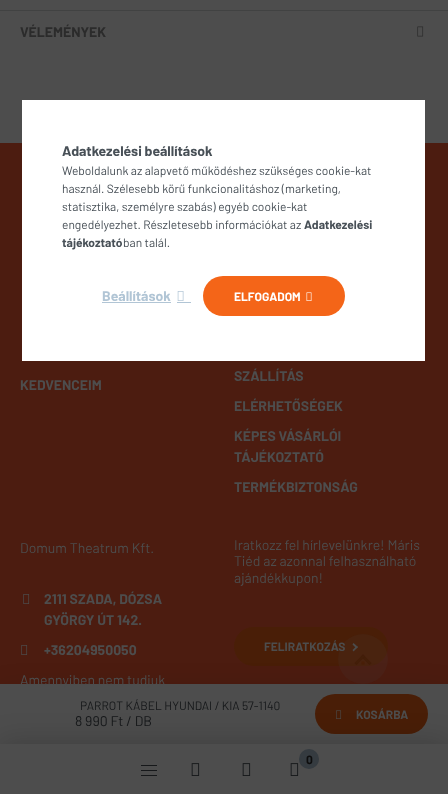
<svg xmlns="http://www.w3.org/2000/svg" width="448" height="794">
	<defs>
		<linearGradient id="g1" gradientUnits="userSpaceOnUse" x1="234" y1="647" x2="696" y2="647"><stop offset="0.33" stop-color="#491E07" /><stop offset="0.67" stop-color="#353B40" /></linearGradient>
		<linearGradient id="g2" gradientUnits="userSpaceOnUse" x1="315" y1="714" x2="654" y2="714"><stop offset="0.33" stop-color="#491E07" /><stop offset="0.67" stop-color="#353B40" /></linearGradient>
		<linearGradient id="g3" gradientUnits="userSpaceOnUse" x1="203" y1="296" x2="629" y2="296"><stop offset="0.33" stop-color="#F46518" /><stop offset="0.67" stop-color="#B1C5D5" /></linearGradient>
	</defs>
	<rect width="100%" height="100%" fill="#4D4D4D" />
	<rect x="0" y="10" width="448" height="1" fill="#414242" />
	<text x="20" y="37" font-family="Barlow" font-size="14" font-weight="700" fill="#2B2B2B">VÉLEMÉNYEK</text>
	<image x="417" y="26" width="7" height="11" href="assets/img1.png" />
	<rect x="0" y="143" width="448" height="541" fill="#4C1C10" />
	<image x="21" y="645" width="7" height="10" href="assets/img3.png" />
	<rect x="234" y="627" width="154" height="39" rx="19.5" fill="url(#g1)" />
	<path d="M352.5 650L356.5 646L358 647L353.5 651.5Z" fill="#4D4D4D" />
	<path d="M353.5 643L358 647L356.5 648.5L352.5 644.5Z" fill="#4D4D4D" />
	<circle cx="363" cy="659" r="25" fill="#4D4D4D" fill-opacity="0.12" />
	<path d="M369.5 665L361 656.5L363 654.5L371.5 663Z" fill="#431E09" />
	<path d="M361.5 664.5V661.5H364.5V664.5Z" fill="#491E07" />
	<path d="M354.5 663L363 654.5L365 656.5L356.5 665Z" fill="#431E09" />
	<rect x="0" y="694" width="448" height="60" fill="#000000" fill-opacity="0.18" filter="blur(15px)" />
	<rect x="0" y="684" width="448" height="60" fill="#4D4D4D" />
	<text x="80" y="710" font-family="Barlow" font-size="12" fill="#16181A">PARROT KÁBEL HYUNDAI / KIA 57-1140</text>
	<text x="75" y="726" font-family="Barlow" font-size="14" fill="#16181A">8 990 Ft / DB</text>
	<rect x="315" y="694" width="113" height="40" rx="20" fill="url(#g2)" />
	<image x="336" y="710" width="6" height="9" href="assets/img2.png" />
	<text x="356" y="719" font-family="Barlow" font-size="12" font-weight="700" fill="#4D4D4D">KOSÁRBA</text>
	<g font-family="Barlow" font-size="14" font-weight="700" fill="#4D4D4D">
		<text x="20" y="390">KEDVENCEIM</text>
		<text x="234" y="381">SZÁLLÍTÁS</text>
		<text x="234" y="411">ELÉRHETŐSÉGEK</text>
		<text x="234" y="441">KÉPES VÁSÁRLÓI</text>
		<text x="234" y="462">TÁJÉKOZTATÓ</text>
		<text x="234" y="492">TERMÉKBIZTONSÁG</text>
	</g>
	<text x="20" y="553" font-family="Barlow" font-size="14" fill="#4D4D4D">Domum Theatrum Kft.</text>
	<image x="23" y="594" width="7" height="10" href="assets/img3.png" />
	<g font-family="Barlow" font-size="14" font-weight="700" fill="#4D4D4D">
		<text x="44" y="604">2111 SZADA, DÓZSA</text>
		<text x="44" y="625">GYÖRGY ÚT 142.</text>
		<text x="44" y="655">+36204950050</text>
	</g>
	<g font-family="Barlow" font-size="14" fill="#4D4D4D">
		<text x="20" y="685">Amennyiben nem tudjuk</text>
		<text x="234" y="550">Iratkozz fel hírlevelünkre! Máris</text>
		<text x="234" y="566">Tiéd az azonnal felhasználható</text>
		<text x="234" y="583">ajándékkupon!</text>
	</g>
	<text x="264" y="651" font-family="Barlow" font-size="12" font-weight="700" fill="#4D4D4D">FELIRATKOZÁS</text>
	<rect x="0" y="744" width="448" height="50" fill="#000000" fill-opacity="0.2" filter="blur(15px)" />
	<rect x="0" y="744" width="448" height="50" fill="#4D4D4D" />
	<circle cx="309" cy="759" r="10" fill="#353B40" />
	<text x="306" y="764" font-family="Barlow" font-size="12" font-weight="700" fill="#0E0E0E">0</text>
	<image x="290" y="763" width="9" height="13" href="assets/img4.png" />
	<rect x="141" y="765" width="16" height="1" fill="#16181A" />
	<rect x="141" y="770" width="16" height="1" fill="#16181A" />
	<rect x="141" y="775" width="16" height="1" fill="#16181A" />
	<image x="191" y="763" width="9" height="13" href="assets/img4.png" />
	<image x="242" y="763" width="9" height="13" href="assets/img4.png" />
	<rect x="22" y="100" width="403" height="261" fill="#FFFFFF" />
	<text x="62" y="156" font-family="Barlow" font-size="14" font-weight="700" fill="#485057">Adatkezelési beállítások</text>
	<g font-family="Barlow" font-size="12" fill="#485057">
		<text x="62" y="175">Weboldalunk az alapvető működéshez szükséges cookie-kat</text>
		<text x="62" y="193">használ. Szélesebb körű funkcionalitáshoz (marketing,</text>
		<text x="62" y="211">statisztika, személyre szabás) egyéb cookie-kat</text>
		<text x="62" y="229">engedélyezhet. Részletesebb információkat az</text>
	</g>
	<g font-family="Barlow" font-size="12" font-weight="700" fill="#485057">
		<text x="304" y="229">Adatkezelési</text>
		<text x="62" y="247">tájékoztató</text>
	</g>
	<text x="123" y="247" font-family="Barlow" font-size="12" fill="#485057">ban talál.</text>
	<text x="102" y="301" font-family="Barlow" font-size="14" font-weight="700" fill="#B1C5D5">Beállítások</text>
	<rect x="102" y="302" width="69" height="1" fill="#B1C5D5" />
	<image x="177" y="291" width="7" height="10" href="assets/img5.png" />
	<rect x="177" y="302" width="14" height="1" fill="#B1C5D5" />
	<rect x="203" y="276" width="142" height="40" rx="20" fill="url(#g3)" />
	<text x="234" y="301" font-family="Barlow" font-size="12" font-weight="700" fill="#FFFFFF">ELFOGADOM</text>
	<image x="306" y="292" width="6" height="9" href="assets/img6.png" />
</svg>
